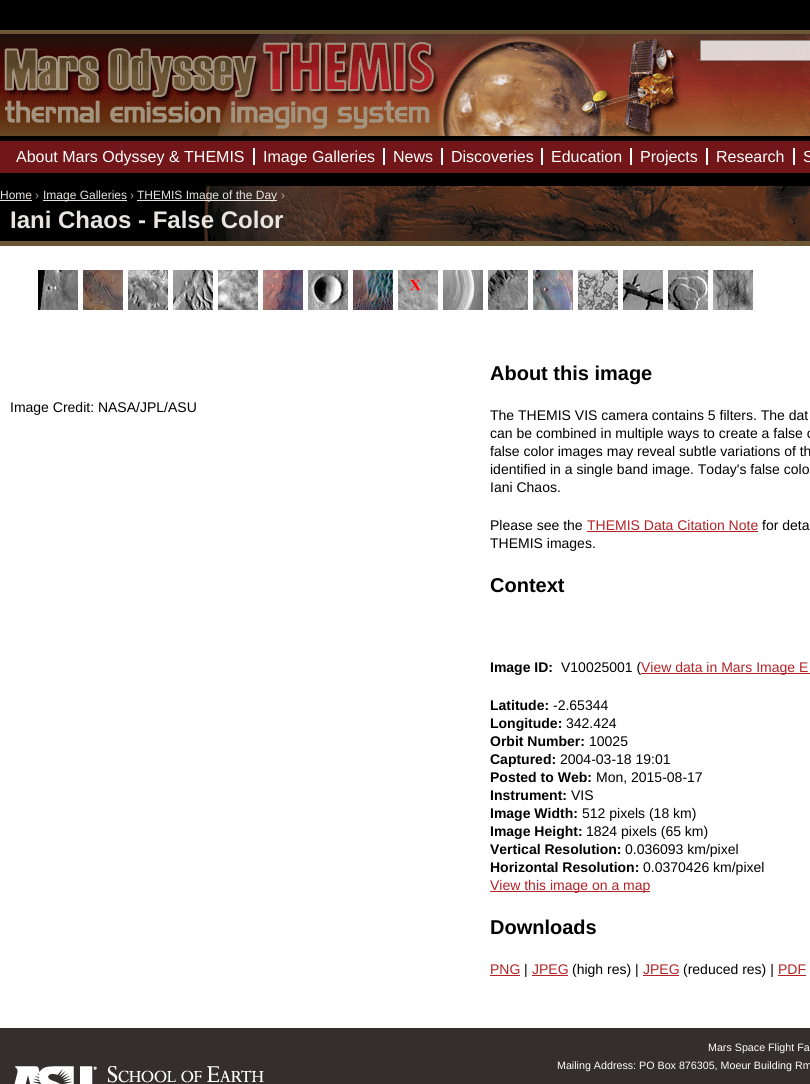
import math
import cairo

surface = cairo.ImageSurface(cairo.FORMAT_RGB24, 810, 1084)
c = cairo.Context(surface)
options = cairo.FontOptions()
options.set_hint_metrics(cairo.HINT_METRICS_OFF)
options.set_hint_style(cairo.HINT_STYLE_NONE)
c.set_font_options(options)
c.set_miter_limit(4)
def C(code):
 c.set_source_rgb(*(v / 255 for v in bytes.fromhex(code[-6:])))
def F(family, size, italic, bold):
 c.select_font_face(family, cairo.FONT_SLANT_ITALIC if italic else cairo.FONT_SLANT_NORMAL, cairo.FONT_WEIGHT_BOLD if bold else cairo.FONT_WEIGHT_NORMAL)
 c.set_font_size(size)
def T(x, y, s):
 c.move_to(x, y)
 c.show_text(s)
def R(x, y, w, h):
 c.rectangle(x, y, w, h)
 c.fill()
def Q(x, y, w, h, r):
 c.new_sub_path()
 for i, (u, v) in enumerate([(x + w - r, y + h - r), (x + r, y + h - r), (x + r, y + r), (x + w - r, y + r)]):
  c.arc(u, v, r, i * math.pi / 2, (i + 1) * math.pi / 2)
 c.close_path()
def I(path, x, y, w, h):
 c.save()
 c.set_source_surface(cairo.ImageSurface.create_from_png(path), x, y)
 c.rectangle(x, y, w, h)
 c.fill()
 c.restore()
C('000000')
c.paint()
I('1.png',0,30,810,106)
c.set_source_rgba(1,1,1,0.8)
Q(700,40,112,21,2)
c.fill()
Q(700.5,40.5,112,20,1.5)
c.set_source_rgba(0.463,0.463,0.463,0.8)
c.set_line_width(1)
c.stroke()
C('721619')
R(0,141,810,32)
F('Liberation Sans',16,0,0)
C('ffffff')
T(16,162,'About Mars Odyssey & THEMIS')
R(253,148,2,17)
T(263,162,'Image Galleries')
R(383,148,2,17)
T(393,162,'News')
R(441,148,2,17)
T(451,162,'Discoveries')
R(541,148,2,17)
T(551,162,'Education')
R(630,148,2,17)
T(640,162,'Projects')
R(706,148,2,17)
T(716,162,'Research')
R(793,148,2,17)
T(803,162,'S')
C('6c5635')
R(0,241,810,5)
I('2.png',204,186,606,55)
F('Liberation Sans',12,0,0)
C('e8e4df')
T(0,199,'Home')
R(0,200,32,1)
C('adaaaa')
T(35,199,'›')
C('e8e4df')
R(43,200,84,1)
T(43,199,'Image Galleries')
C('adaaaa')
T(130,199,'›')
C('e8e4df')
R(137,200,140,1)
T(137,199,'THEMIS Image of the Day')
C('adaaaa')
T(281,199,'›')
F('Liberation Sans',24,0,1)
C('e8e4df')
T(10,228,'Iani Chaos - False Color')
C('ffffff')
R(0,246,810,782)
I('3.png',38,270,40,40)
I('4.png',83,270,40,40)
I('5.png',128,270,40,40)
I('6.png',173,270,40,40)
I('7.png',218,270,40,40)
I('8.png',263,270,40,40)
I('9.png',308,270,40,40)
I('10.png',353,270,40,40)
I('11.png',398,270,40,40)
I('12.png',443,270,40,40)
I('13.png',488,270,40,40)
I('14.png',533,270,40,40)
I('15.png',578,270,40,40)
I('16.png',623,270,40,40)
I('17.png',668,270,40,40)
I('18.png',713,270,40,40)
F('Liberation Sans',14,0,0)
C('000000')
T(10,412,'Image Credit: NASA/JPL/ASU')
F('Liberation Sans',20,0,1)
T(490,380,'About this image')
F('Liberation Sans',14,0,0)
T(490,420,'The THEMIS VIS camera contains 5 filters. The dat')
T(490,438,'can be combined in multiple ways to create a false c')
T(490,456,'false color images may reveal subtle variations of th')
T(490,474,'identified in a single band image. Today\'s false colo')
T(490,492,'Iani Chaos.')
T(490,530,'Please see the')
C('b42228')
T(587,530,'THEMIS Data Citation Note')
R(587,531,171,1)
C('000000')
T(762,530,'for deta')
T(490,548,'THEMIS images.')
F('Liberation Sans',20,0,1)
T(490,592,'Context')
F('Liberation Sans',14,0,1)
T(490,672,'Image ID:')
F('Liberation Sans',14,0,0)
T(561,672,'V10025001 (')
C('b42228')
R(641,673,169,1)
T(641,672,'View data in Mars Image E')
F('Liberation Sans',14,0,1)
C('000000')
T(490,710,'Latitude:')
F('Liberation Sans',14,0,0)
T(553,710,'-2.65344')
F('Liberation Sans',14,0,1)
T(490,728,'Longitude:')
F('Liberation Sans',14,0,0)
T(566,728,'342.424')
F('Liberation Sans',14,0,1)
T(490,746,'Orbit Number:')
F('Liberation Sans',14,0,0)
T(589,746,'10025')
F('Liberation Sans',14,0,1)
T(490,764,'Captured:')
F('Liberation Sans',14,0,0)
T(560,764,'2004-03-18 19:01')
F('Liberation Sans',14,0,1)
T(490,782,'Posted to Web:')
F('Liberation Sans',14,0,0)
T(596,782,'Mon, 2015-08-17')
F('Liberation Sans',14,0,1)
T(490,800,'Instrument:')
F('Liberation Sans',14,0,0)
T(571,800,'VIS')
F('Liberation Sans',14,0,1)
T(490,818,'Image Width:')
F('Liberation Sans',14,0,0)
T(582,818,'512 pixels (18 km)')
F('Liberation Sans',14,0,1)
T(490,836,'Image Height:')
F('Liberation Sans',14,0,0)
T(586,836,'1824 pixels (65 km)')
F('Liberation Sans',14,0,1)
T(490,854,'Vertical Resolution:')
F('Liberation Sans',14,0,0)
T(625,854,'0.036093 km/pixel')
F('Liberation Sans',14,0,1)
T(490,872,'Horizontal Resolution:')
F('Liberation Sans',14,0,0)
T(643,872,'0.0370426 km/pixel')
C('b42228')
R(490,891,160,1)
T(490,890,'View this image on a map')
F('Liberation Sans',20,0,1)
C('000000')
T(490,934,'Downloads')
F('Liberation Sans',14,0,0)
C('b42228')
T(490,974,'PNG')
R(490,975,30,1)
C('000000')
T(524,974,'|')
C('b42228')
T(532,974,'JPEG')
R(532,975,36,1)
C('000000')
T(572,974,'(high res) |')
C('b42228')
T(643,974,'JPEG')
R(643,975,36,1)
C('000000')
T(683,974,'(reduced res) |')
C('b42228')
T(778,974,'PDF')
R(778,975,28,1)
C('352e2e')
R(0,1028,810,56)
I('19.png',14,1066,250,18)
F('Liberation Sans',10.7,0,0)
C('ffffff')
T(708,1051,'Mars Space Flight Fa')
T(557,1069,'Mailing Address: PO Box 876305, Moeur Building Rm')
surface.write_to_png('o.png')
